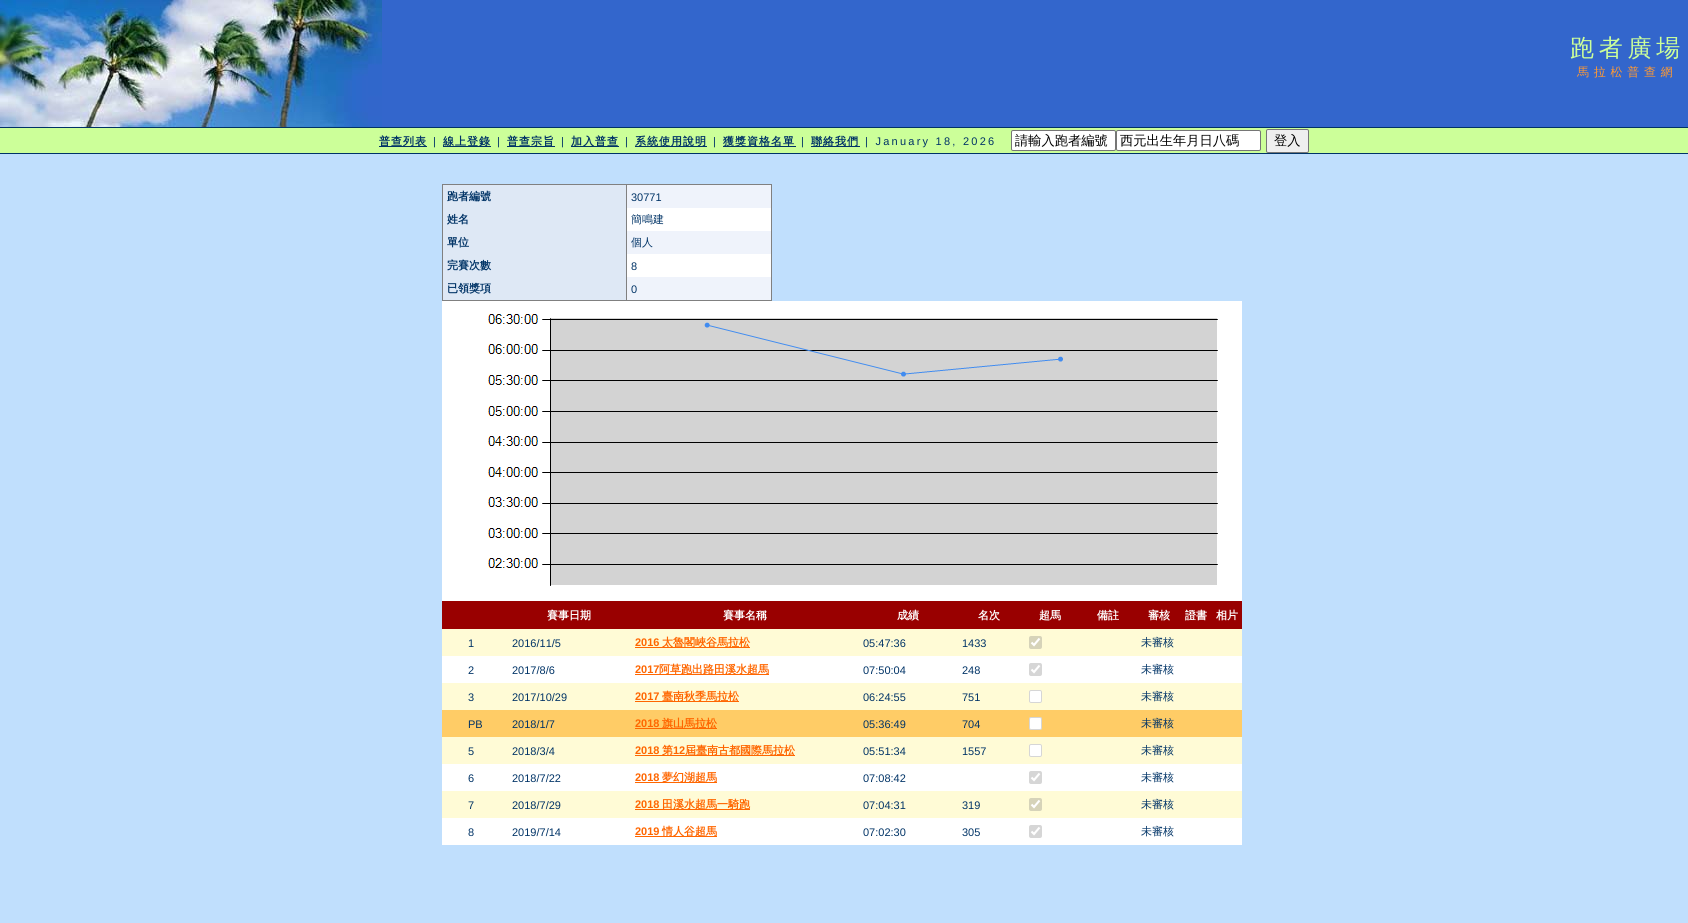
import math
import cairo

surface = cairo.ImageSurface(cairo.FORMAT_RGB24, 1688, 923)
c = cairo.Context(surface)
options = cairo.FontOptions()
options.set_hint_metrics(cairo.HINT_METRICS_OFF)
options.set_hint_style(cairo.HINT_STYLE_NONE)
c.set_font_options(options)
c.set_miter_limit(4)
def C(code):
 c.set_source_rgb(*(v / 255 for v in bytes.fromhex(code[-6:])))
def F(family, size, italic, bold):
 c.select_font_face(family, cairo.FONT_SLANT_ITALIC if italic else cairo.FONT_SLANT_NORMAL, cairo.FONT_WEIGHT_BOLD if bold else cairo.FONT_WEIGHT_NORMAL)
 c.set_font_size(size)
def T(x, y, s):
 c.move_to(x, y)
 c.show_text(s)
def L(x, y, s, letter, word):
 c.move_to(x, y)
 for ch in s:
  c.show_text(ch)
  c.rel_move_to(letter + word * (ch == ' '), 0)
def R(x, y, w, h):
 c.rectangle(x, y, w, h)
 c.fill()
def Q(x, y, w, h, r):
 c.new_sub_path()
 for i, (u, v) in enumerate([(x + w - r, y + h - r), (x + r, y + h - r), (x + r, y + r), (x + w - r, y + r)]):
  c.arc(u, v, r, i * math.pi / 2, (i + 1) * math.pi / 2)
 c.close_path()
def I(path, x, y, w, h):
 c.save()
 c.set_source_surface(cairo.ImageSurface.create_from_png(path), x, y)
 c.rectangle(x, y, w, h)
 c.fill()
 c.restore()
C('c0dffd')
c.paint()
C('3366cc')
R(382,0,1306,127)
I('1.png',0,0,382,127)
F('WenQuanYi Zen Hei Medium',24,0,0)
C('ccff99')
L(1570,56,'跑者廣場',4.75,0)
F('WenQuanYi Zen Hei Medium',12,0,0)
C('ff9933')
L(1577,76,'馬拉松普查網',4.75,0)
C('003366')
R(0,127,1688,1)
C('ccff99')
R(0,128,1688,25)
C('003366')
R(379,146,48,1)
F('WenQuanYi Zen Hei',11,0,1)
L(379,145,'普查列表',1,0)
F('Liberation Sans',11,0,0)
L(433,145,'|',2.25,0)
R(443,146,48,1)
F('WenQuanYi Zen Hei',11,0,1)
L(443,145,'線上登錄',1,0)
F('Liberation Sans',11,0,0)
L(497,145,'|',2.25,0)
R(507,146,48,1)
F('WenQuanYi Zen Hei',11,0,1)
L(507,145,'普查宗旨',1,0)
F('Liberation Sans',11,0,0)
L(561,145,'|',2.25,0)
R(571,146,48,1)
F('WenQuanYi Zen Hei',11,0,1)
L(571,145,'加入普查',1,0)
F('Liberation Sans',11,0,0)
L(625,145,'|',2.25,0)
R(635,146,72,1)
F('WenQuanYi Zen Hei',11,0,1)
L(635,145,'系統使用說明',1,0)
F('Liberation Sans',11,0,0)
L(713,145,'|',2.25,0)
R(723,146,73,1)
F('WenQuanYi Zen Hei',11,0,1)
L(723,145,'獲獎資格名單',1,0)
F('Liberation Sans',11,0,0)
L(801,145,'|',2.25,0)
R(811,146,49,1)
F('WenQuanYi Zen Hei',11,0,1)
L(811,145,'聯絡我們',1,0)
F('Liberation Sans',11,0,0)
L(865,145,'| January 18, 2026',2.25,0)
C('ffffff')
Q(1011.5,130.5,104,20,1.5)
c.fill_preserve()
C('767676')
c.set_line_width(1)
c.stroke()
F('WenQuanYi Zen Hei Medium',13.25,0,0)
C('000000')
T(1015,145,'請輸入跑者編號')
C('ffffff')
Q(1116.5,130.5,144,20,1.5)
c.fill_preserve()
C('767676')
c.stroke()
C('000000')
T(1120,145,'西元出生年月日八碼')
C('efefef')
Q(1266.5,129.5,42,23,1.5)
c.fill_preserve()
C('767676')
c.stroke()
C('000000')
T(1274,145,'登入')
C('003366')
R(0,153,1688,1)
C('808080')
R(442,184,330,1)
R(771,184,1,117)
R(442,300,330,1)
R(442,184,1,117)
C('eff3fb')
R(627,185,144,23)
C('dee8f5')
R(443,185,183,115)
F('WenQuanYi Zen Hei',11,0,1)
C('003366')
T(447,200,'跑者編號')
F('Liberation Sans',11,0,0)
T(631,201,'30771')
C('ffffff')
R(627,208,144,23)
F('WenQuanYi Zen Hei',11,0,1)
C('003366')
T(447,223,'姓名')
F('WenQuanYi Zen Hei Medium',11,0,0)
T(631,223,'簡鳴建')
C('eff3fb')
R(627,231,144,23)
F('WenQuanYi Zen Hei',11,0,1)
C('003366')
T(447,246,'單位')
F('WenQuanYi Zen Hei Medium',11,0,0)
T(631,246,'個人')
C('ffffff')
R(627,254,144,23)
F('WenQuanYi Zen Hei',11,0,1)
C('003366')
T(447,269,'完賽次數')
F('Liberation Sans',11,0,0)
T(631,270,'8')
C('eff3fb')
R(627,277,144,23)
F('WenQuanYi Zen Hei',11,0,1)
C('003366')
T(447,292,'已領獎項')
C('808080')
R(626,184,1,117)
F('Liberation Sans',11,0,0)
C('003366')
T(631,293,'0')
I('2.png',442,301,800,300)
C('990000')
R(442,601,800,28)
F('WenQuanYi Zen Hei',11,0,1)
C('ffffff')
T(547,619,'賽事日期')
T(723,619,'賽事名稱')
T(897,619,'成績')
T(978,619,'名次')
T(1039,619,'超馬')
T(1097,619,'備註')
T(1148,619,'審核')
T(1185,619,'證書')
T(1216,619,'相片')
C('fffbd6')
R(442,629,800,27)
F('Liberation Sans',11,0,0)
C('003366')
T(468,647,'1')
T(512,647,'2016/11/5')
F('Liberation Sans',11,0,1)
C('ff6600')
T(635,646,'2016')
R(635,647,115,1)
F('WenQuanYi Zen Hei',11,0,1)
T(662,646,'太魯閣峽谷馬拉松')
F('Liberation Sans',11,0,0)
C('003366')
T(863,647,'05:47:36')
T(962,647,'1433')
C('d6d3b9')
Q(1029,636,13,13,2)
c.fill()
c.new_path()
c.move_to(1031.5,642.5)
c.line_to(1034,645)
c.line_to(1039.5,638.5)
C('ffffff')
c.set_line_width(2.1)
c.stroke()
F('WenQuanYi Zen Hei Medium',11,0,0)
C('003366')
T(1141,646,'未審核')
C('ffffff')
R(442,656,800,27)
F('Liberation Sans',11,0,0)
C('003366')
T(468,674,'2')
T(512,674,'2017/8/6')
F('Liberation Sans',11,0,1)
C('ff6600')
T(635,673,'2017')
R(635,674,134,1)
F('WenQuanYi Zen Hei',11,0,1)
T(659,673,'阿草跑出路田溪水超馬')
F('Liberation Sans',11,0,0)
C('003366')
T(863,674,'07:50:04')
T(962,674,'248')
C('d6d6d6')
Q(1029,663,13,13,2)
c.fill()
c.new_path()
c.move_to(1031.5,669.5)
c.line_to(1034,672)
c.line_to(1039.5,665.5)
C('ffffff')
c.stroke()
F('WenQuanYi Zen Hei Medium',11,0,0)
C('003366')
T(1141,673,'未審核')
C('fffbd6')
R(442,683,800,27)
F('Liberation Sans',11,0,0)
C('003366')
T(468,701,'3')
T(512,701,'2017/10/29')
F('Liberation Sans',11,0,1)
C('ff6600')
T(635,700,'2017')
R(635,701,104,1)
F('WenQuanYi Zen Hei',11,0,1)
T(662,700,'臺南秋季馬拉松')
F('Liberation Sans',11,0,0)
C('003366')
T(863,701,'06:24:55')
T(962,701,'751')
C('ffffff')
Q(1029,690,13,13,2)
c.fill()
Q(1029.5,690.5,12,12,1.5)
c.set_source_rgba(0.463,0.463,0.463,0.3)
c.set_line_width(1)
c.stroke()
F('WenQuanYi Zen Hei Medium',11,0,0)
C('003366')
T(1141,700,'未審核')
C('ffcc66')
R(442,710,800,27)
F('Liberation Sans',11,0,0)
C('003366')
T(468,728,'PB')
T(512,728,'2018/1/7')
F('Liberation Sans',11,0,1)
C('ff6600')
T(635,727,'2018')
R(635,728,82,1)
F('WenQuanYi Zen Hei',11,0,1)
T(662,727,'旗山馬拉松')
F('Liberation Sans',11,0,0)
C('003366')
T(863,728,'05:36:49')
T(962,728,'704')
C('ffffff')
Q(1029,717,13,13,2)
c.fill()
Q(1029.5,717.5,12,12,1.5)
c.set_source_rgba(0.463,0.463,0.463,0.3)
c.stroke()
F('WenQuanYi Zen Hei Medium',11,0,0)
C('003366')
T(1141,727,'未審核')
C('fffbd6')
R(442,737,800,27)
F('Liberation Sans',11,0,0)
C('003366')
T(468,755,'5')
T(512,755,'2018/3/4')
F('Liberation Sans',11,0,1)
C('ff6600')
T(635,754,'2018')
R(635,755,160,1)
F('WenQuanYi Zen Hei',11,0,1)
T(662,754,'第')
F('Liberation Sans',11,0,1)
T(673,754,'12')
F('WenQuanYi Zen Hei',11,0,1)
T(685,754,'屆臺南古都國際馬拉松')
F('Liberation Sans',11,0,0)
C('003366')
T(863,755,'05:51:34')
T(962,755,'1557')
C('ffffff')
Q(1029,744,13,13,2)
c.fill()
Q(1029.5,744.5,12,12,1.5)
c.set_source_rgba(0.463,0.463,0.463,0.3)
c.stroke()
F('WenQuanYi Zen Hei Medium',11,0,0)
C('003366')
T(1141,754,'未審核')
C('ffffff')
R(442,764,800,27)
F('Liberation Sans',11,0,0)
C('003366')
T(468,782,'6')
T(512,782,'2018/7/22')
F('Liberation Sans',11,0,1)
C('ff6600')
T(635,781,'2018')
R(635,782,82,1)
F('WenQuanYi Zen Hei',11,0,1)
T(662,781,'夢幻湖超馬')
F('Liberation Sans',11,0,0)
C('003366')
T(863,782,'07:08:42')
C('d6d6d6')
Q(1029,771,13,13,2)
c.fill()
c.new_path()
c.move_to(1031.5,777.5)
c.line_to(1034,780)
c.line_to(1039.5,773.5)
C('ffffff')
c.set_line_width(2.1)
c.stroke()
F('WenQuanYi Zen Hei Medium',11,0,0)
C('003366')
T(1141,781,'未審核')
C('fffbd6')
R(442,791,800,27)
F('Liberation Sans',11,0,0)
C('003366')
T(468,809,'7')
T(512,809,'2018/7/29')
F('Liberation Sans',11,0,1)
C('ff6600')
T(635,808,'2018')
R(635,809,115,1)
F('WenQuanYi Zen Hei',11,0,1)
T(662,808,'田溪水超馬一騎跑')
F('Liberation Sans',11,0,0)
C('003366')
T(863,809,'07:04:31')
T(962,809,'319')
C('d6d3b9')
Q(1029,798,13,13,2)
c.fill()
c.new_path()
c.move_to(1031.5,804.5)
c.line_to(1034,807)
c.line_to(1039.5,800.5)
C('ffffff')
c.stroke()
F('WenQuanYi Zen Hei Medium',11,0,0)
C('003366')
T(1141,808,'未審核')
C('ffffff')
R(442,818,800,27)
F('Liberation Sans',11,0,0)
C('003366')
T(468,836,'8')
T(512,836,'2019/7/14')
F('Liberation Sans',11,0,1)
C('ff6600')
T(635,835,'2019')
R(635,836,82,1)
F('WenQuanYi Zen Hei',11,0,1)
T(662,835,'情人谷超馬')
F('Liberation Sans',11,0,0)
C('003366')
T(863,836,'07:02:30')
T(962,836,'305')
C('d6d6d6')
Q(1029,825,13,13,2)
c.fill()
c.new_path()
c.move_to(1031.5,831.5)
c.line_to(1034,834)
c.line_to(1039.5,827.5)
C('ffffff')
c.stroke()
F('WenQuanYi Zen Hei Medium',11,0,0)
C('003366')
T(1141,835,'未審核')
surface.write_to_png('o.png')
